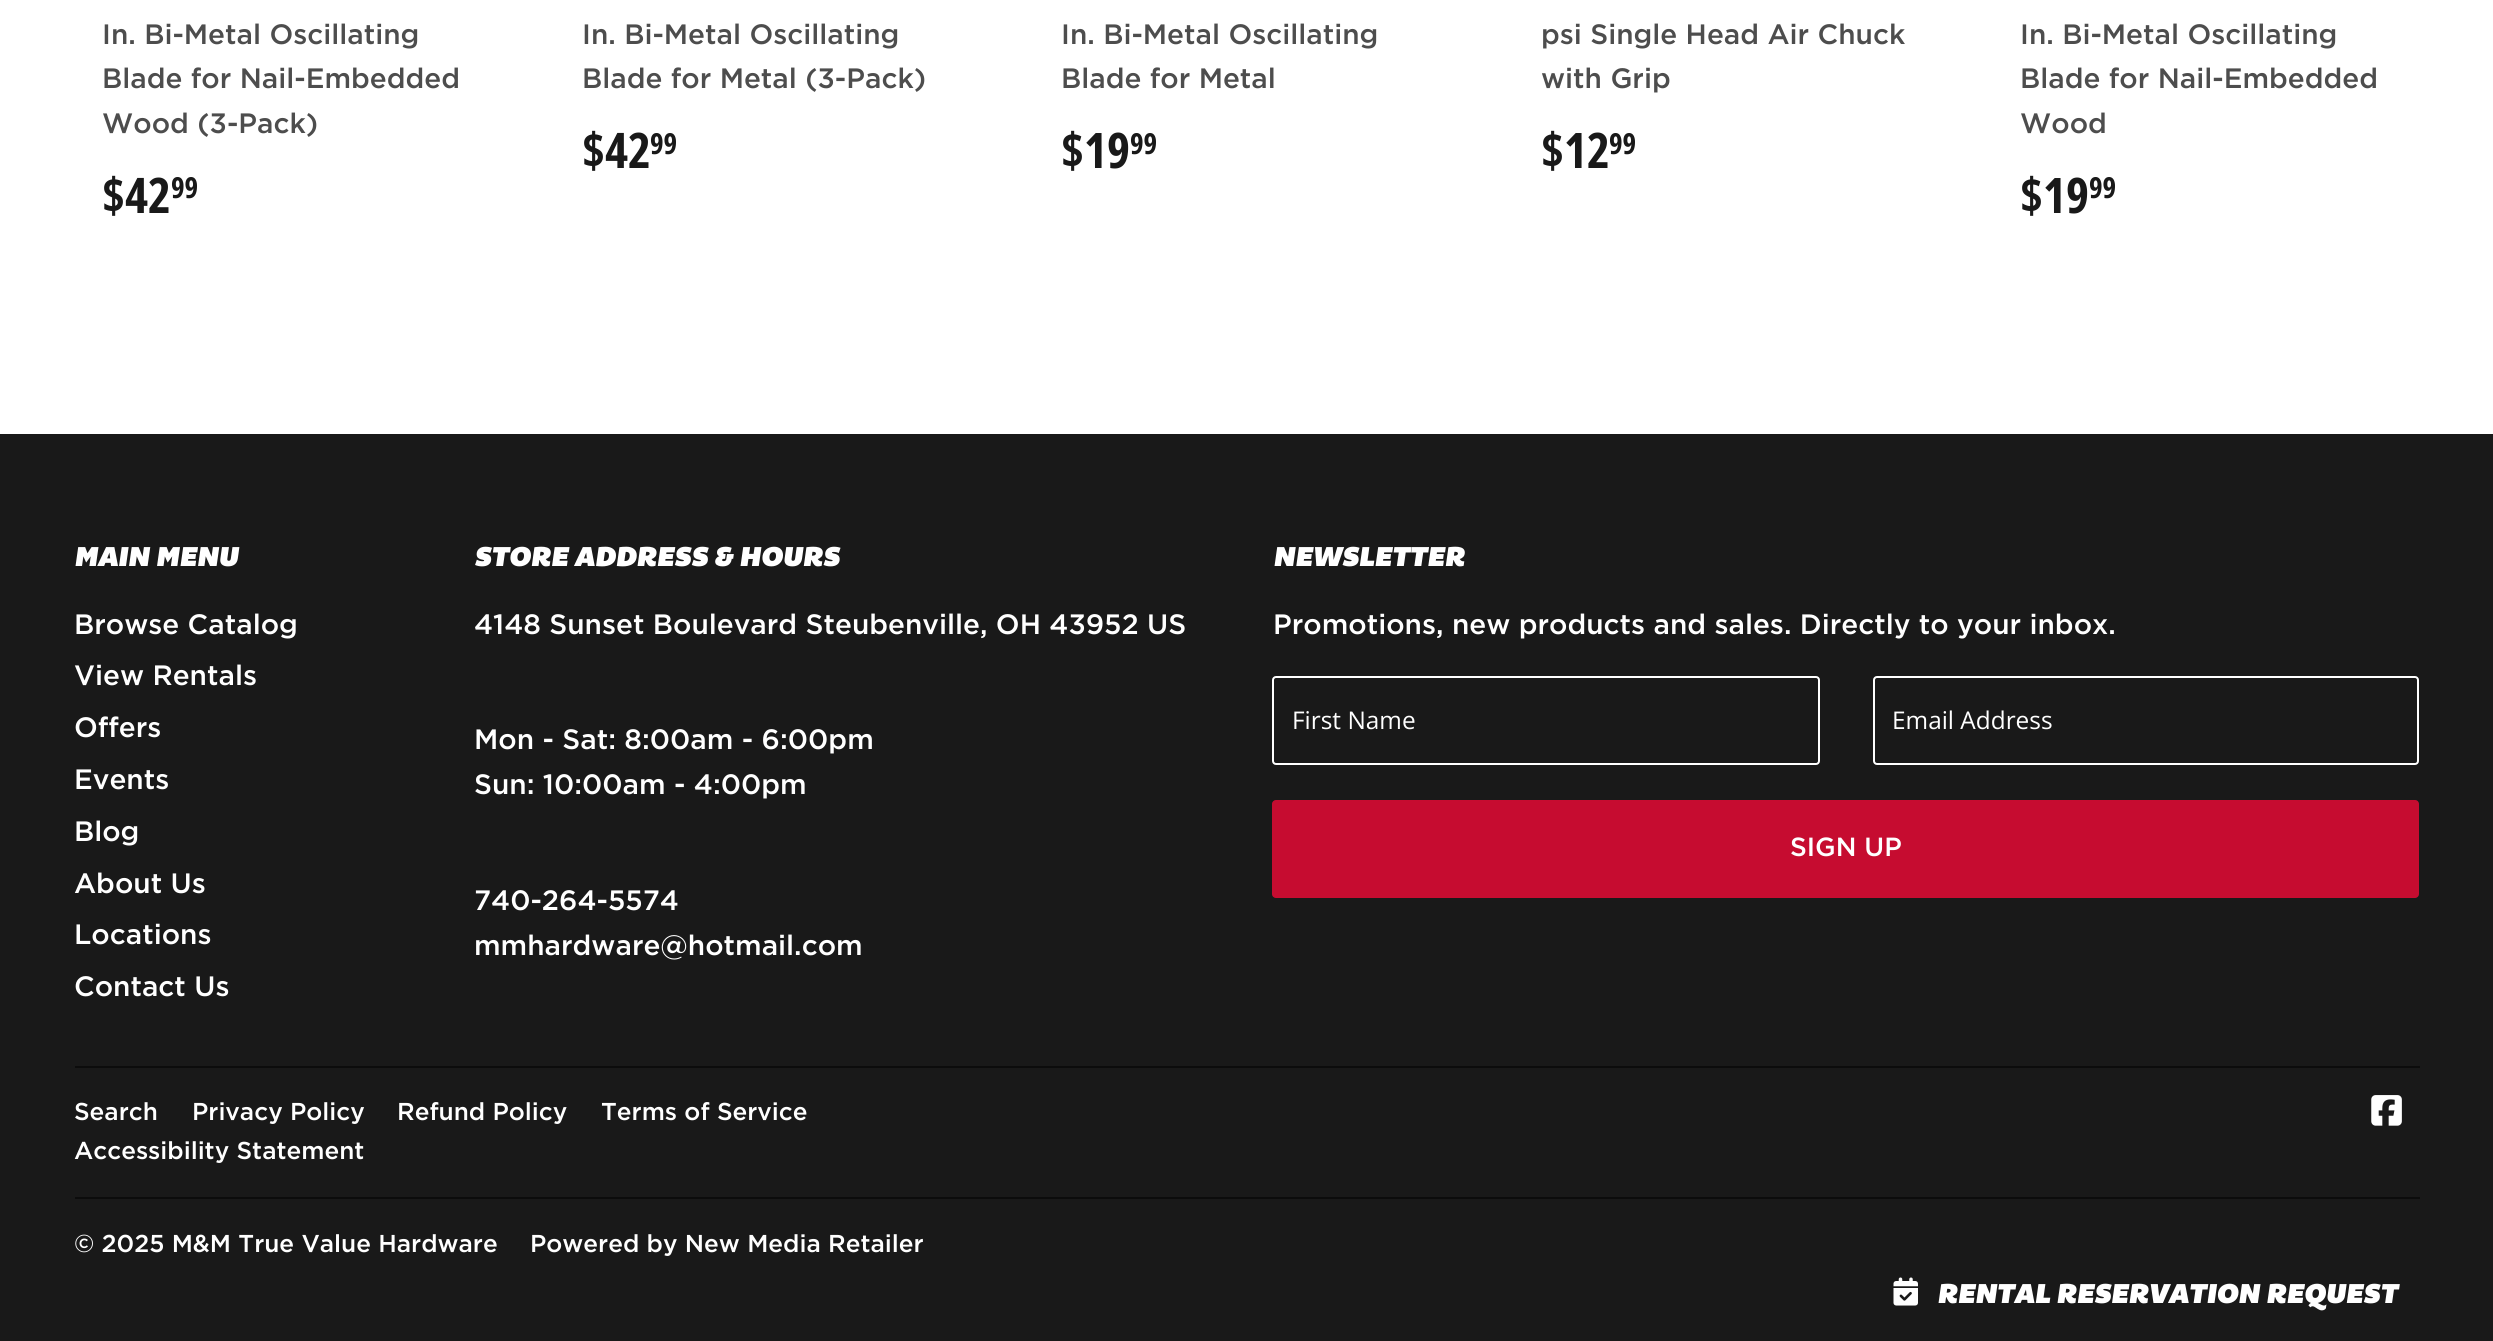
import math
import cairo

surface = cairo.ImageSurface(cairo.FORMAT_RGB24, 2493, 1341)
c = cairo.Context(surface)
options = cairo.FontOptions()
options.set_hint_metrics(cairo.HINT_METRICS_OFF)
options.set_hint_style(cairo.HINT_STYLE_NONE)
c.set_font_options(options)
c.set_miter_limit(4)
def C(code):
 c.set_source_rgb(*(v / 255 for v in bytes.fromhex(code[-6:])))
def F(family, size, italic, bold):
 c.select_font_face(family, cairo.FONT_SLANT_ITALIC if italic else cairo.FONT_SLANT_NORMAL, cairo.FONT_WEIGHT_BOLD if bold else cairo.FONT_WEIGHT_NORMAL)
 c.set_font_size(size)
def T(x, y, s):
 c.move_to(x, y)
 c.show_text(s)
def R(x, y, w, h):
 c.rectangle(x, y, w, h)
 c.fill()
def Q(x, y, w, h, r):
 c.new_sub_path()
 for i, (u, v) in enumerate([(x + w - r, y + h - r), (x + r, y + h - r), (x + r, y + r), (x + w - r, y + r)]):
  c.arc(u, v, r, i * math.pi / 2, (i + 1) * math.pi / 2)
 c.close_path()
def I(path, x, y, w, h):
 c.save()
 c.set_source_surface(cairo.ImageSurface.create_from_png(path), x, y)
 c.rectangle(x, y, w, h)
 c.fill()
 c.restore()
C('ffffff')
c.paint()
F('Gotham Medium',28,0,0)
C('4d4d4d')
T(102,44,'In. Bi-Metal Oscillating')
T(102,88,'Blade for Nail-Embedded')
T(102,133,'Wood (3-Pack)')
F('Open Sans Condensed',49,0,1)
C('191919')
T(102,213,'$42')
F('Open Sans Condensed',29,0,1)
T(171,198,'99')
F('Gotham Medium',28,0,0)
C('4d4d4d')
T(582,44,'In. Bi-Metal Oscillating')
T(582,88,'Blade for Metal (3-Pack)')
F('Open Sans Condensed',49,0,1)
C('191919')
T(582,168,'$42')
F('Open Sans Condensed',29,0,1)
T(650,154,'99')
F('Gotham Medium',28,0,0)
C('4d4d4d')
T(1061,44,'In. Bi-Metal Oscillating')
T(1061,88,'Blade for Metal')
F('Open Sans Condensed',49,0,1)
C('191919')
T(1061,168,'$19')
F('Open Sans Condensed',29,0,1)
T(1130,154,'99')
F('Gotham Medium',28,0,0)
C('4d4d4d')
T(1541,44,'psi Single Head Air Chuck')
T(1541,88,'with Grip')
F('Open Sans Condensed',49,0,1)
C('191919')
T(1541,168,'$12')
F('Open Sans Condensed',29,0,1)
T(1609,154,'99')
F('Gotham Medium',28,0,0)
C('4d4d4d')
T(2020,44,'In. Bi-Metal Oscillating')
T(2020,88,'Blade for Nail-Embedded')
T(2020,133,'Wood')
F('Open Sans Condensed',49,0,1)
C('191919')
T(2020,213,'$19')
F('Open Sans Condensed',29,0,1)
T(2089,198,'99')
R(0,434,2493,907)
F('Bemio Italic',28,1,0)
C('ffffff')
T(74,566,'MAIN MENU')
F('Gotham Medium',28,0,0)
T(74,634,'Browse Catalog')
T(74,685,'View Rentals')
T(74,737,'Offers')
T(74,789,'Events')
T(74,841,'Blog')
T(74,893,'About Us')
T(74,944,'Locations')
T(74,996,'Contact Us')
F('Bemio Italic',28,1,0)
T(474,566,'STORE ADDRESS & HOURS')
F('Gotham Medium',28,0,0)
T(474,634,'4148 Sunset Boulevard Steubenville, OH 43952 US')
T(474,749,'Mon - Sat: 8:00am - 6:00pm')
T(474,794,'Sun: 10:00am - 4:00pm')
T(474,910,'740-264-5574')
T(474,955,'mmhardware@hotmail.com')
F('Bemio Italic',28,1,0)
T(1273,566,'NEWSLETTER')
F('Gotham Medium',28,0,0)
T(1273,634,'Promotions, new products and sales. Directly to your inbox.')
Q(1273,677,546,87,3)
c.stroke()
F('Open Sans',24.4,0,0)
T(1292,729,'First Name')
Q(1874,677,544,87,3)
c.stroke()
T(1892,729,'Email Address')
C('c60c30')
Q(1272,800,1147,98,4)
c.fill()
F('Gotham Medium',26.25,0,0)
C('ffffff')
T(1790,856,'SIGN UP')
C('0c0c0c')
R(75,1066,2345,2)
F('Gotham Medium',24.4,0,0)
C('ffffff')
T(74,1120,'Search')
T(192,1120,'Privacy Policy')
T(397,1120,'Refund Policy')
T(601,1120,'Terms of Service')
T(74,1159,'Accessibility Statement')
I('1.png',2371,1095,31,31)
C('0c0c0c')
R(75,1197,2345,2)
C('ffffff')
T(74,1252,'© 2025 M&M True Value Hardware')
T(530,1252,'Powered by New Media Retailer')
I('2.png',1893,1277,25,29)
F('Bemio Italic',28,1,0)
T(1937,1303,'RENTAL RESERVATION REQUEST')
surface.write_to_png('o.png')
